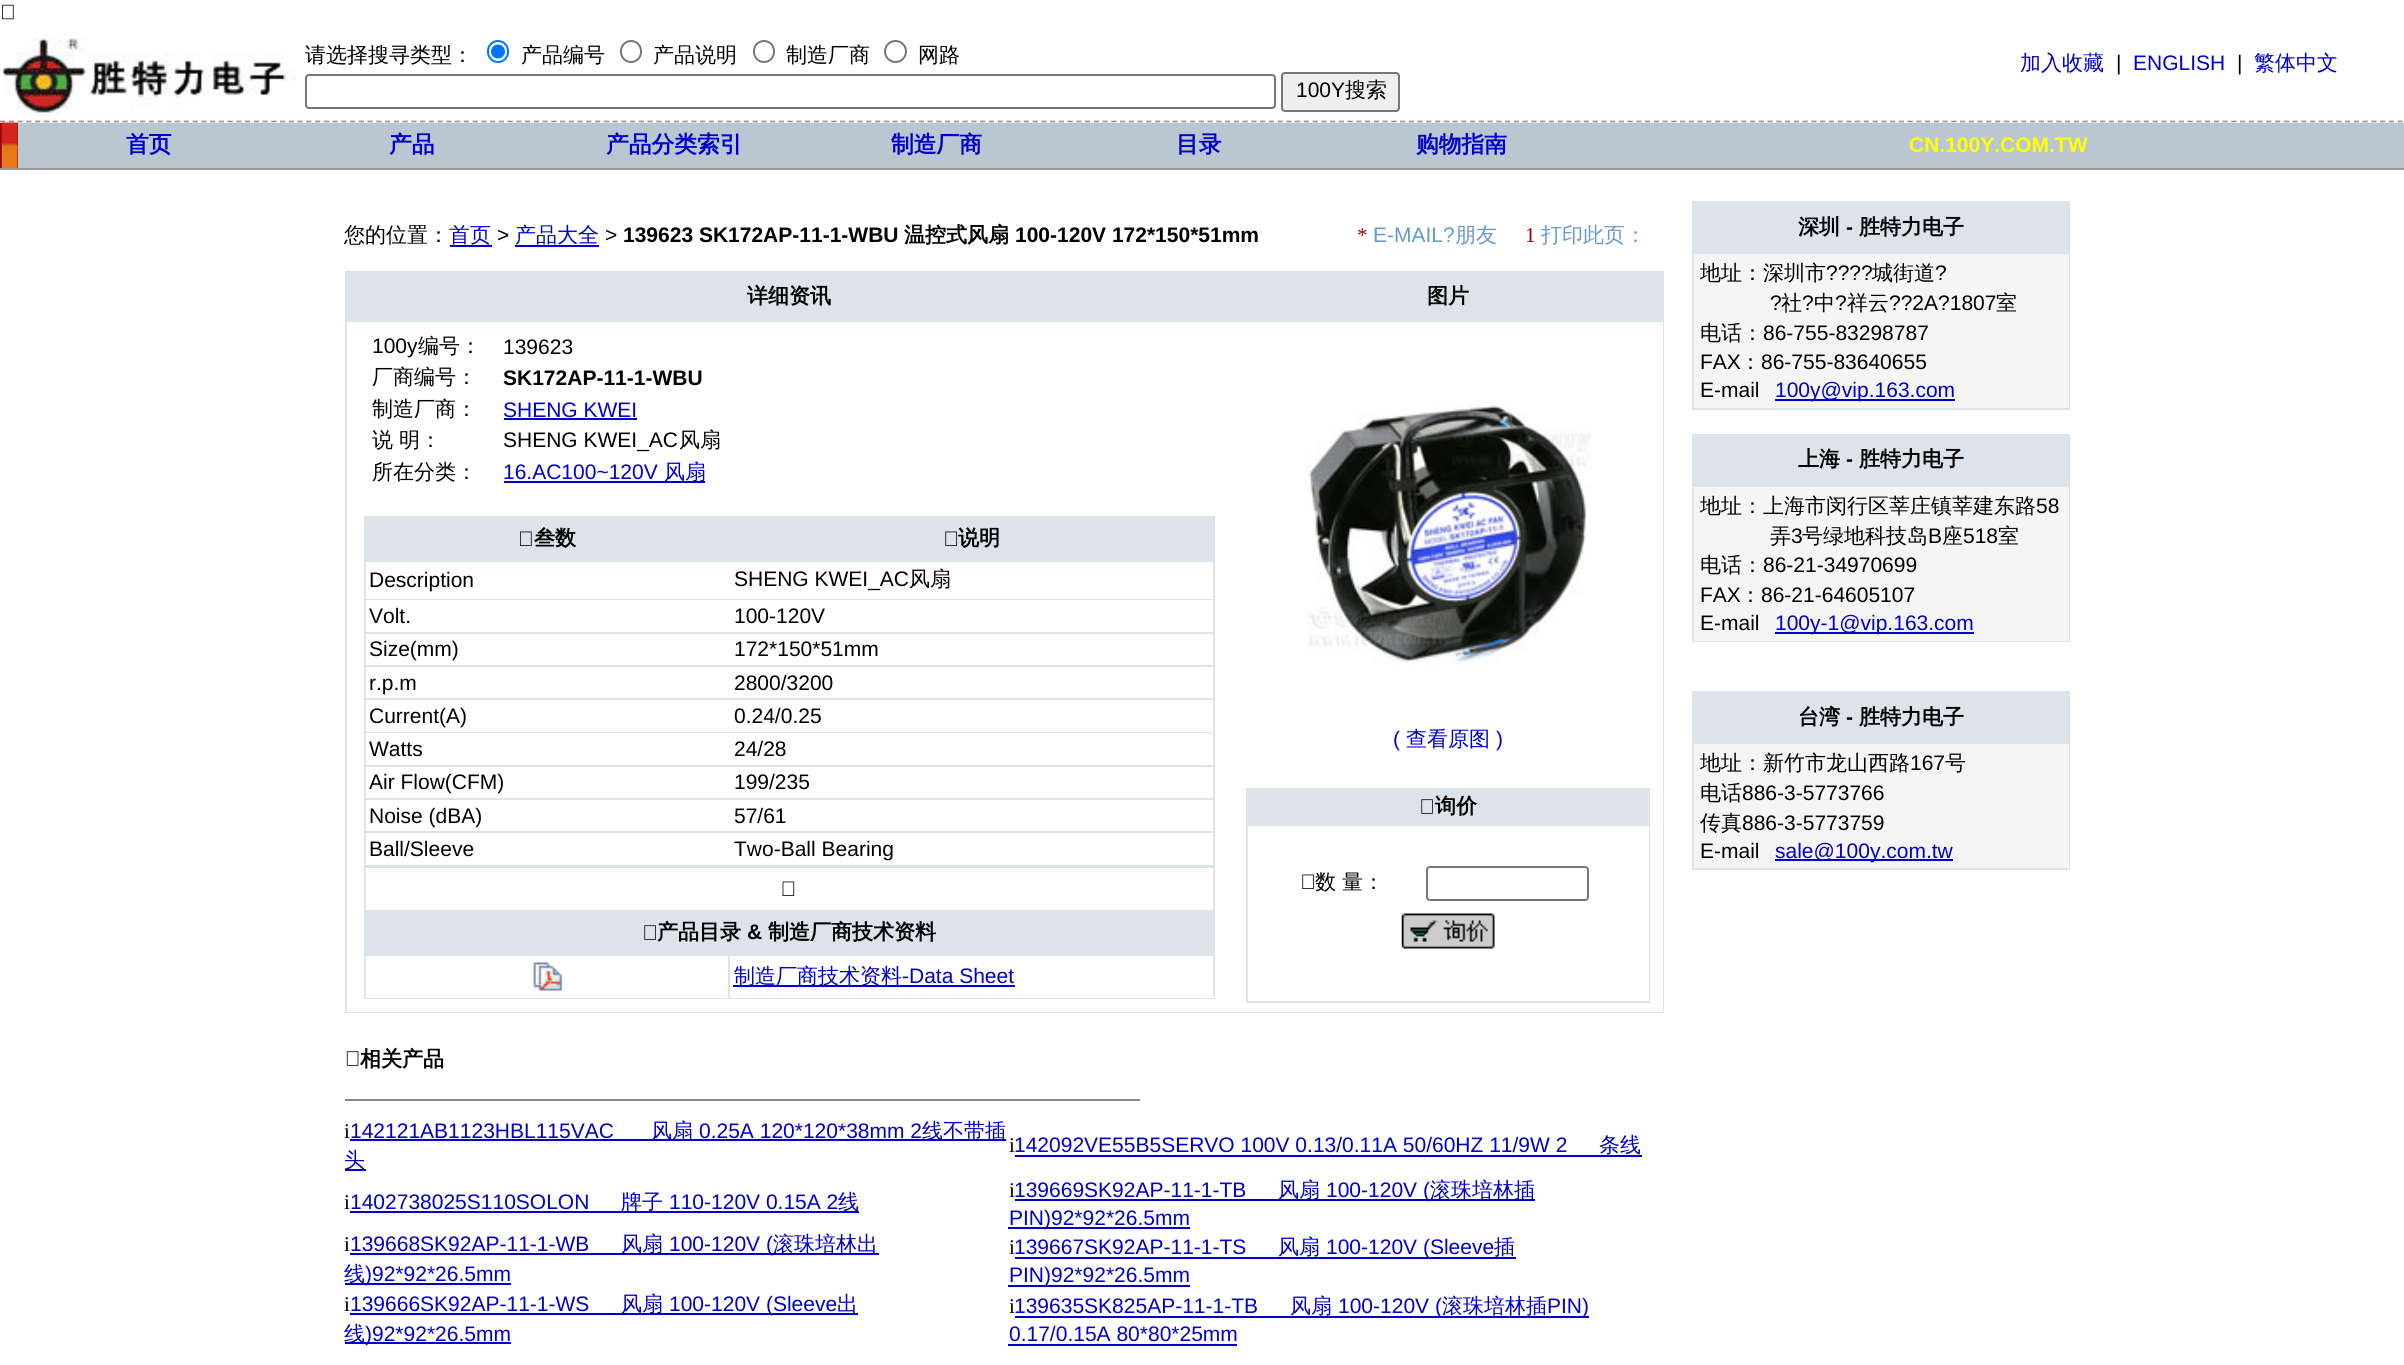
import math
import cairo

surface = cairo.ImageSurface(cairo.FORMAT_RGB24, 2404, 1365)
c = cairo.Context(surface)
options = cairo.FontOptions()
options.set_hint_metrics(cairo.HINT_METRICS_OFF)
options.set_hint_style(cairo.HINT_STYLE_NONE)
c.set_font_options(options)
c.set_miter_limit(4)
def C(code):
 c.set_source_rgb(*(v / 255 for v in bytes.fromhex(code[-6:])))
def F(family, size, italic, bold):
 c.select_font_face(family, cairo.FONT_SLANT_ITALIC if italic else cairo.FONT_SLANT_NORMAL, cairo.FONT_WEIGHT_BOLD if bold else cairo.FONT_WEIGHT_NORMAL)
 c.set_font_size(size)
def T(x, y, s):
 c.move_to(x, y)
 c.show_text(s)
def R(x, y, w, h):
 c.rectangle(x, y, w, h)
 c.fill()
def Q(x, y, w, h, r):
 c.new_sub_path()
 for i, (u, v) in enumerate([(x + w - r, y + h - r), (x + r, y + h - r), (x + r, y + r), (x + w - r, y + r)]):
  c.arc(u, v, r, i * math.pi / 2, (i + 1) * math.pi / 2)
 c.close_path()
def I(path, x, y, w, h):
 c.save()
 c.set_source_surface(cairo.ImageSurface.create_from_png(path), x, y)
 c.rectangle(x, y, w, h)
 c.fill()
 c.restore()
C('ffffff')
c.paint()
I('1.png',2,4,12,16)
I('2.png',3,38,293,79)
F('WenQuanYi Zen Hei Medium',21,0,0)
C('000000')
T(305,62,'请选择搜寻类型：')
Q(488,41,20,21,10)
C('0075ff')
c.stroke()
c.arc(498,51.5,7,0,2 * math.pi)
c.fill()
C('000000')
T(521,62,'产品编号')
Q(621,41,20,21,10)
C('767676')
c.stroke()
C('000000')
T(653,62,'产品说明')
Q(754,41,20,21,10)
C('767676')
c.stroke()
C('000000')
T(786,62,'制造厂商')
c.new_path()
c.arc(895.5,51.5,10.5,0,2 * math.pi)
C('767676')
c.stroke()
C('000000')
T(918,62,'网路')
Q(306,75,969,33,3)
C('767676')
c.stroke()
C('efefef')
Q(1282,73,117,38,3)
c.fill_preserve()
C('767676')
c.stroke()
F('Liberation Sans',21,0,0)
C('000000')
T(1296,97,'100Y')
F('WenQuanYi Zen Hei Medium',21,0,0)
T(1345,97,'搜索')
C('0000cc')
T(2020,70,'加入收藏')
F('Liberation Sans',21,0,0)
C('000000')
T(2116,70,'|')
C('0000cc')
T(2133,70,'ENGLISH')
C('000000')
T(2237,70,'|')
F('WenQuanYi Zen Hei Medium',21,0,0)
C('0000cc')
T(2254,70,'繁体中文')
c.new_path()
c.move_to(0,121.5)
c.line_to(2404.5,121.5)
C('999999')
c.set_line_width(1.8)
c.set_dash([5.25,3.5])
c.stroke()
R(0,168,2404,2)
C('990000')
R(0,123,18,45)
I('3.png',1,122,17,46)
C('bac7d1')
R(18,123,2386,45)
F('WenQuanYi Zen Hei',22.75,0,1)
C('0000cc')
T(126,152,'首页')
T(389,152,'产品')
T(606,152,'产品分类索引')
T(891,152,'制造厂商')
T(1176,152,'目录')
T(1416,152,'购物指南')
F('Liberation Sans',21,0,1)
C('ffff00')
T(1909,152,'CN.100Y.COM.TW')
F('WenQuanYi Zen Hei Medium',21,0,0)
C('000000')
T(344,242,'您的位置：')
C('0000cc')
R(450,245,42,2)
T(449,242,'首页')
F('Liberation Sans',21,0,0)
C('000000')
T(497,242,'>')
F('WenQuanYi Zen Hei Medium',21,0,0)
C('0000cc')
T(515,242,'产品大全')
R(515,245,84,2)
F('Liberation Sans',21,0,0)
C('000000')
T(605,242,'>')
F('Liberation Sans',21,0,1)
T(623,242,'139623 SK172AP-11-1-WBU')
F('WenQuanYi Zen Hei',21,0,1)
T(904,242,'温控式风扇')
F('Liberation Sans',21,0,1)
T(1015,242,'100-120V 172*150*51mm')
F('Liberation Serif',21,0,0)
C('990000')
T(1357,242,'*')
F('Liberation Sans',21,0,0)
C('6699cc')
T(1373,242,'E-MAIL?')
F('WenQuanYi Zen Hei Medium',21,0,0)
T(1455,242,'朋友')
F('Liberation Serif',21,0,0)
C('990000')
T(1525,242,'1')
F('WenQuanYi Zen Hei Medium',21,0,0)
C('6699cc')
T(1541,242,'打印此页：')
C('dde3eb')
R(345,271,1319,742)
F('WenQuanYi Zen Hei',21,0,1)
C('000000')
T(747,303,'详细资讯')
T(1427,303,'图片')
C('ffffff')
R(347,322,1316,690)
F('Liberation Sans',21,0,0)
C('000000')
T(372,353,'100y')
F('WenQuanYi Zen Hei Medium',21,0,0)
T(418,353,'编号：')
F('Liberation Sans',21,0,0)
T(503,354,'139623')
F('WenQuanYi Zen Hei Medium',21,0,0)
T(372,384,'厂商编号：')
F('Liberation Sans',21,0,1)
T(503,385,'SK172AP-11-1-WBU')
F('WenQuanYi Zen Hei Medium',21,0,0)
T(372,416,'制造厂商：')
F('Liberation Sans',21,0,0)
C('0000cc')
T(503,417,'SHENG KWEI')
R(504,418,133,2)
F('WenQuanYi Zen Hei Medium',21,0,0)
C('000000')
T(372,447,'说')
T(399,447,'明：')
F('Liberation Sans',21,0,0)
T(503,447,'SHENG KWEI_AC')
F('WenQuanYi Zen Hei Medium',21,0,0)
T(679,447,'风扇')
T(372,479,'所在分类：')
F('Liberation Sans',21,0,0)
C('0000cc')
T(503,479,'16.AC100~120V')
R(504,481,201,2)
F('WenQuanYi Zen Hei Medium',21,0,0)
T(664,479,'风扇')
C('dde3eb')
R(364,516,851,483)
I('4.png',520,531,12,15)
F('WenQuanYi Zen Hei',21,0,1)
C('000000')
T(534,545,'叁数')
I('5.png',945,531,12,15)
T(958,545,'说明')
C('ffffff')
R(366,562,847,37)
F('Liberation Sans',21,0,0)
C('000000')
T(369,587,'Description')
T(734,586,'SHENG KWEI_AC')
F('WenQuanYi Zen Hei Medium',21,0,0)
T(909,586,'风扇')
C('ffffff')
R(366,600,847,32)
F('Liberation Sans',21,0,0)
C('000000')
T(369,623,'Volt.')
T(734,623,'100-120V')
C('ffffff')
R(366,634,847,31)
C('000000')
T(369,656,'Size(mm)')
T(734,656,'172*150*51mm')
C('ffffff')
R(366,667,847,31)
C('000000')
T(369,690,'r.p.m')
T(734,690,'2800/3200')
C('ffffff')
R(366,700,847,32)
C('000000')
T(369,723,'Current(A)')
T(734,723,'0.24/0.25')
C('ffffff')
R(366,733,847,32)
C('000000')
T(369,756,'Watts')
T(734,756,'24/28')
C('ffffff')
R(366,767,847,31)
C('000000')
T(369,789,'Air Flow(CFM)')
T(734,789,'199/235')
C('ffffff')
R(366,800,847,31)
C('000000')
T(369,823,'Noise (dBA)')
T(734,823,'57/61')
C('ffffff')
R(366,833,847,32)
C('000000')
T(369,856,'Ball/Sleeve')
T(734,856,'Two-Ball Bearing')
C('ffffff')
R(366,868,847,42)
I('6.png',782,881,13,15)
I('7.png',644,925,12,15)
F('WenQuanYi Zen Hei',21,0,1)
C('000000')
T(657,939,'产品目录')
F('Liberation Sans',21,0,1)
T(747,939,'&')
F('WenQuanYi Zen Hei',21,0,1)
T(768,939,'制造厂商技术资料')
C('ffffff')
R(366,956,362,42)
I('8.png',533,962,30,29)
R(730,956,483,42)
C('0000cc')
R(733,985,282,2)
F('WenQuanYi Zen Hei Medium',21,0,0)
T(734,983,'制造厂商技术资料')
F('Liberation Sans',21,0,0)
T(902,983,'-Data Sheet')
I('9.png',1306,405,285,260)
T(1393,746,'(')
F('WenQuanYi Zen Hei Medium',21,0,0)
T(1406,746,'查看原图')
F('Liberation Sans',21,0,0)
T(1496,746,')')
C('dde3eb')
R(1246,788,404,215)
I('7.png',1421,799,12,15)
F('WenQuanYi Zen Hei',21,0,1)
C('000000')
T(1435,813,'询价')
C('ffffff')
R(1248,826,401,175)
I('10.png',1302,874,12,15)
F('WenQuanYi Zen Hei Medium',21,0,0)
C('000000')
T(1315,889,'数')
T(1342,889,'量：')
Q(1427,867,161,33,3)
C('767676')
c.set_line_width(2)
c.set_dash([])
c.stroke()
I('11.png',1401,913,94,36)
I('12.png',346,1051,13,15)
F('WenQuanYi Zen Hei',21,0,1)
C('000000')
T(360,1066,'相关产品')
C('898989')
R(345,1099,795,2)
F('Liberation Serif',21,0,0)
C('000000')
T(344,1138,'i')
F('Liberation Sans',21,0,0)
C('0000cc')
T(350,1138,'142121AB1123HBL115VAC')
R(350,1139,656,2)
F('WenQuanYi Zen Hei Medium',21,0,0)
T(651,1138,'风扇')
F('Liberation Sans',21,0,0)
T(699,1138,'0.25A 120*120*38mm 2')
F('WenQuanYi Zen Hei Medium',21,0,0)
T(922,1138,'线不带插')
R(345,1169,21,2)
T(344,1167,'头')
F('Liberation Serif',21,0,0)
C('000000')
T(1009,1152,'i')
F('Liberation Sans',21,0,0)
C('0000cc')
T(1014,1152,'142092VE55B5SERVO 100V 0.13/0.11A 50/60HZ 11/9W 2')
R(1015,1155,627,2)
F('WenQuanYi Zen Hei Medium',21,0,0)
T(1599,1152,'条线')
F('Liberation Serif',21,0,0)
C('000000')
T(344,1209,'i')
F('Liberation Sans',21,0,0)
C('0000cc')
T(350,1209,'1402738025S110SOLON')
R(350,1211,509,2)
F('WenQuanYi Zen Hei Medium',21,0,0)
T(621,1209,'牌子')
F('Liberation Sans',21,0,0)
T(669,1209,'110-120V 0.15A 2')
F('WenQuanYi Zen Hei Medium',21,0,0)
T(838,1209,'线')
F('Liberation Serif',21,0,0)
C('000000')
T(1009,1197,'i')
F('Liberation Sans',21,0,0)
C('0000cc')
T(1014,1197,'139669SK92AP-11-1-TB')
R(1015,1199,520,2)
F('WenQuanYi Zen Hei Medium',21,0,0)
T(1278,1197,'风扇')
F('Liberation Sans',21,0,0)
T(1326,1197,'100-120V (')
F('WenQuanYi Zen Hei Medium',21,0,0)
T(1430,1197,'滚珠培林插')
R(1008,1227,182,2)
F('Liberation Sans',21,0,0)
T(1009,1225,'PIN)92*92*26.5mm')
F('Liberation Serif',21,0,0)
C('000000')
T(344,1251,'i')
F('Liberation Sans',21,0,0)
C('0000cc')
T(350,1251,'139668SK92AP-11-1-WB')
R(350,1253,529,2)
F('WenQuanYi Zen Hei Medium',21,0,0)
T(621,1251,'风扇')
F('Liberation Sans',21,0,0)
T(669,1251,'100-120V (')
F('WenQuanYi Zen Hei Medium',21,0,0)
T(773,1251,'滚珠培林出')
R(345,1283,166,2)
T(344,1281,'线')
F('Liberation Sans',21,0,0)
T(365,1281,')92*92*26.5mm')
F('Liberation Serif',21,0,0)
C('000000')
T(1009,1254,'i')
F('Liberation Sans',21,0,0)
C('0000cc')
T(1014,1254,'139667SK92AP-11-1-TS')
F('WenQuanYi Zen Hei Medium',21,0,0)
T(1278,1254,'风扇')
R(1015,1257,501,2)
F('Liberation Sans',21,0,0)
T(1326,1254,'100-120V (Sleeve')
F('WenQuanYi Zen Hei Medium',21,0,0)
T(1494,1254,'插')
R(1008,1285,182,2)
F('Liberation Sans',21,0,0)
T(1009,1282,'PIN)92*92*26.5mm')
F('Liberation Serif',21,0,0)
C('000000')
T(344,1311,'i')
F('Liberation Sans',21,0,0)
C('0000cc')
T(350,1311,'139666SK92AP-11-1-WS')
R(350,1313,508,2)
F('WenQuanYi Zen Hei Medium',21,0,0)
T(621,1311,'风扇')
F('Liberation Sans',21,0,0)
T(669,1311,'100-120V (Sleeve')
F('WenQuanYi Zen Hei Medium',21,0,0)
T(837,1311,'出')
R(345,1342,166,2)
T(344,1341,'线')
F('Liberation Sans',21,0,0)
T(365,1341,')92*92*26.5mm')
F('Liberation Serif',21,0,0)
C('000000')
T(1009,1313,'i')
F('Liberation Sans',21,0,0)
C('0000cc')
T(1014,1313,'139635SK825AP-11-1-TB')
F('WenQuanYi Zen Hei Medium',21,0,0)
T(1290,1313,'风扇')
R(1015,1316,574,2)
F('Liberation Sans',21,0,0)
T(1338,1313,'100-120V (')
F('WenQuanYi Zen Hei Medium',21,0,0)
T(1442,1313,'滚珠培林插')
F('Liberation Sans',21,0,0)
T(1547,1313,'PIN)')
T(1009,1341,'0.17/0.15A 80*80*25mm')
R(1008,1344,229,2)
C('dde3eb')
R(1692,201,378,209)
F('WenQuanYi Zen Hei',21,0,1)
C('000000')
T(1798,234,'深圳')
F('Liberation Sans',21,0,1)
T(1846,234,'-')
F('WenQuanYi Zen Hei',21,0,1)
T(1859,234,'胜特力电子')
C('f5f5f5')
R(1694,254,375,154)
F('WenQuanYi Zen Hei Medium',21,0,0)
C('000000')
T(1700,280,'地址：深圳市')
F('Liberation Sans',21,0,0)
T(1826,280,'????')
F('WenQuanYi Zen Hei Medium',21,0,0)
T(1872,280,'城街道')
F('Liberation Sans',21,0,0)
T(1935,280,'?')
T(1770,310,'?')
F('WenQuanYi Zen Hei Medium',21,0,0)
T(1781,310,'社')
F('Liberation Sans',21,0,0)
T(1802,310,'?')
F('WenQuanYi Zen Hei Medium',21,0,0)
T(1814,310,'中')
F('Liberation Sans',21,0,0)
T(1835,310,'?')
F('WenQuanYi Zen Hei Medium',21,0,0)
T(1847,310,'祥云')
F('Liberation Sans',21,0,0)
T(1889,310,'??2A?1807')
F('WenQuanYi Zen Hei Medium',21,0,0)
T(1996,310,'室')
T(1700,340,'电话：')
F('Liberation Sans',21,0,0)
T(1763,340,'86-755-83298787')
T(1700,369,'FAX')
F('WenQuanYi Zen Hei Medium',21,0,0)
T(1740,369,'：')
F('Liberation Sans',21,0,0)
T(1761,369,'86-755-83640655')
T(1700,397,'E-mail')
C('0000cc')
R(1775,399,180,2)
T(1775,397,'100y@vip.163.com')
C('dde3eb')
R(1692,434,378,208)
F('WenQuanYi Zen Hei',21,0,1)
C('000000')
T(1798,466,'上海')
F('Liberation Sans',21,0,1)
T(1846,466,'-')
F('WenQuanYi Zen Hei',21,0,1)
T(1859,466,'胜特力电子')
C('f5f5f5')
R(1694,487,375,154)
F('WenQuanYi Zen Hei Medium',21,0,0)
C('000000')
T(1700,513,'地址：上海市闵行区莘庄镇莘建东路')
F('Liberation Sans',21,0,0)
T(2036,513,'58')
F('WenQuanYi Zen Hei Medium',21,0,0)
T(1770,543,'弄')
F('Liberation Sans',21,0,0)
T(1791,543,'3')
F('WenQuanYi Zen Hei Medium',21,0,0)
T(1802,543,'号绿地科技岛')
F('Liberation Sans',21,0,0)
T(1928,543,'B')
F('WenQuanYi Zen Hei Medium',21,0,0)
T(1942,543,'座')
F('Liberation Sans',21,0,0)
T(1963,543,'518')
F('WenQuanYi Zen Hei Medium',21,0,0)
T(1998,543,'室')
T(1700,572,'电话：')
F('Liberation Sans',21,0,0)
T(1763,572,'86-21-34970699')
T(1700,602,'FAX')
F('WenQuanYi Zen Hei Medium',21,0,0)
T(1740,602,'：')
F('Liberation Sans',21,0,0)
T(1761,602,'86-21-64605107')
T(1700,630,'E-mail')
C('0000cc')
R(1775,632,199,2)
T(1775,630,'100y-1@vip.163.com')
C('dde3eb')
R(1692,691,378,179)
F('WenQuanYi Zen Hei',21,0,1)
C('000000')
T(1798,724,'台湾')
F('Liberation Sans',21,0,1)
T(1846,724,'-')
F('WenQuanYi Zen Hei',21,0,1)
T(1859,724,'胜特力电子')
C('f5f5f5')
R(1694,744,375,124)
F('WenQuanYi Zen Hei Medium',21,0,0)
C('000000')
T(1700,770,'地址：新竹市龙山西路')
F('Liberation Sans',21,0,0)
T(1910,770,'167')
F('WenQuanYi Zen Hei Medium',21,0,0)
T(1945,770,'号')
T(1700,800,'电话')
F('Liberation Sans',21,0,0)
T(1742,800,'886-3-5773766')
F('WenQuanYi Zen Hei Medium',21,0,0)
T(1700,830,'传真')
F('Liberation Sans',21,0,0)
T(1742,830,'886-3-5773759')
T(1700,858,'E-mail')
C('0000cc')
R(1775,859,178,2)
T(1775,858,'sale@100y.com.tw')
surface.write_to_png('o.png')
